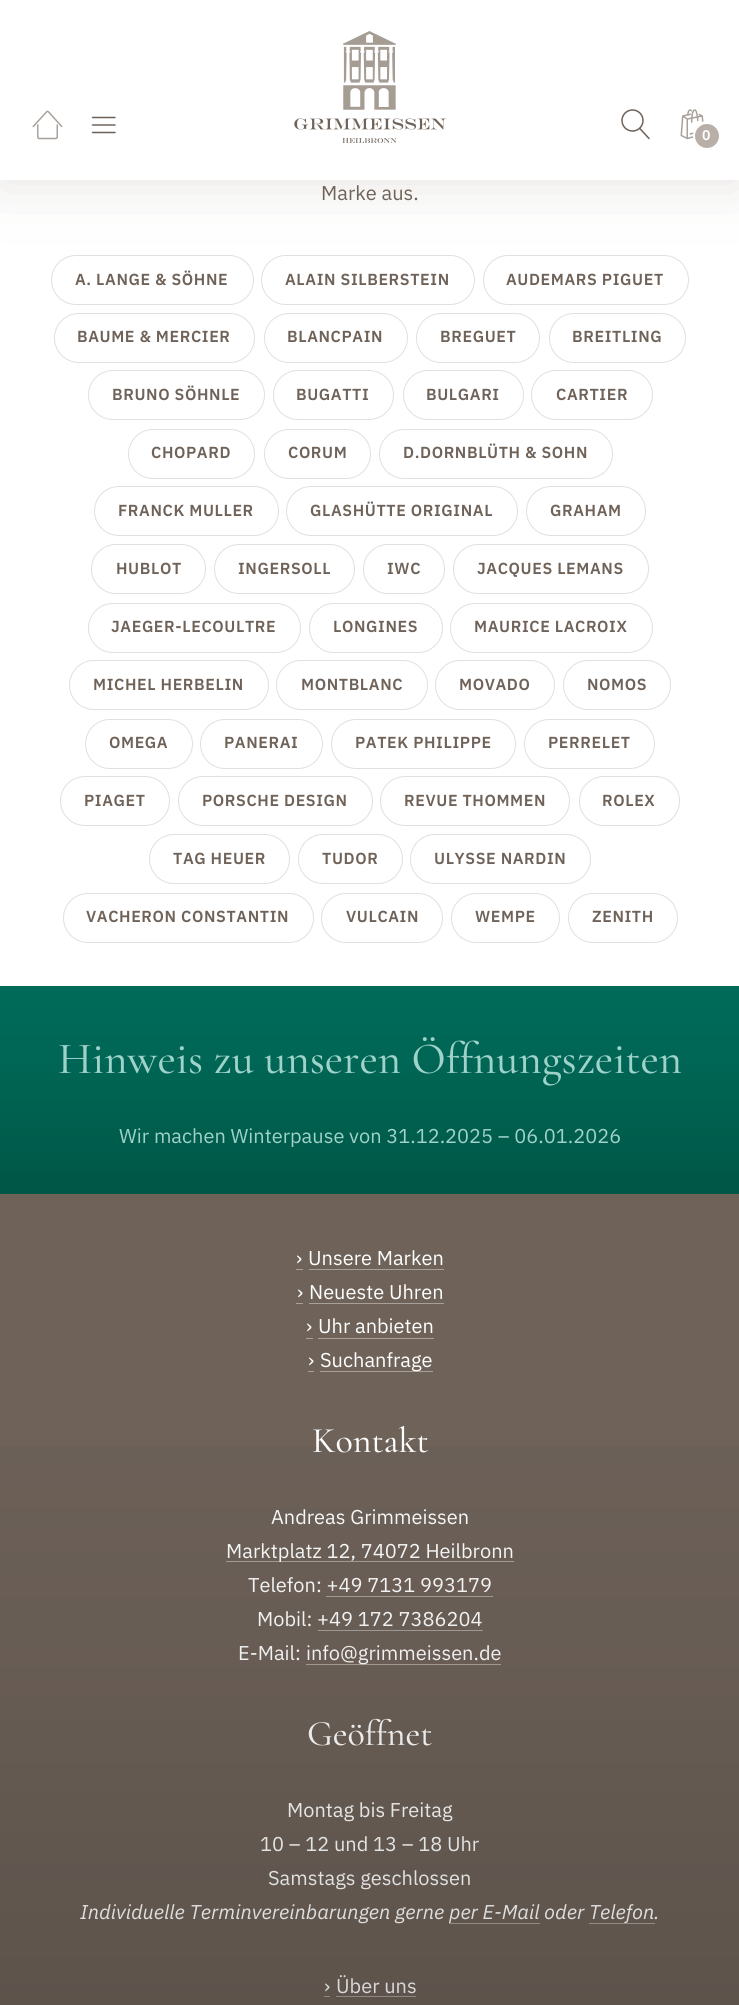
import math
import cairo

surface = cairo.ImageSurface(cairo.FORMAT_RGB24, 739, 2005)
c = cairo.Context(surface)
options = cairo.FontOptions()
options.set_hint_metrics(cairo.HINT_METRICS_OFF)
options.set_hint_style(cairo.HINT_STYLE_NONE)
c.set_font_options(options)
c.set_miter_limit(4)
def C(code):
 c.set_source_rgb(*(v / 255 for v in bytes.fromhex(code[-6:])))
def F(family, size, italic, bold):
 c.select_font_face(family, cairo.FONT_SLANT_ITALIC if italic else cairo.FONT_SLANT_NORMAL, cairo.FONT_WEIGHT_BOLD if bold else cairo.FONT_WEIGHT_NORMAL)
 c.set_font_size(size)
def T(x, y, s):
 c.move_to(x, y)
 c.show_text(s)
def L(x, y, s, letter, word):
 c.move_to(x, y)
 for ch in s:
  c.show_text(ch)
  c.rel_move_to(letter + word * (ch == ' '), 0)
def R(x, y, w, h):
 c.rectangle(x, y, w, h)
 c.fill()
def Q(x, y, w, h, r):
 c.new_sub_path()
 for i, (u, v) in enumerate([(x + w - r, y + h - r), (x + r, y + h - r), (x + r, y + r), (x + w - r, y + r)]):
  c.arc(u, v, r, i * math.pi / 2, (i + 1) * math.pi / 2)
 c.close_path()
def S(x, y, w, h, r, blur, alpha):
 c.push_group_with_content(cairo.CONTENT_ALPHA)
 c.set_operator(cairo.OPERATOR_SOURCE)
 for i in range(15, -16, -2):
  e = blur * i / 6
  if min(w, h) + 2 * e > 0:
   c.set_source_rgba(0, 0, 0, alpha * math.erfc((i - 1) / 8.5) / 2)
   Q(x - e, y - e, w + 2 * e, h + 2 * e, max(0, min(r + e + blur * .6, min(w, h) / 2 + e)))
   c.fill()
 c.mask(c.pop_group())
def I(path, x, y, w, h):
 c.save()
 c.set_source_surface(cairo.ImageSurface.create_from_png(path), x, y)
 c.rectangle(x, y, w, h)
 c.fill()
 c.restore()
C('ffffff')
c.paint()
Q(51.5,255.5,202,49,24.5)
C('e2e0de')
c.set_line_width(1)
c.stroke()
Q(261.5,255.5,213,49,24.5)
c.stroke()
Q(483.5,255.5,205,49,24.5)
c.stroke()
C('6e6259')
S(0,0,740,180,0,30,.2)
C('ffffff')
R(0,0,739,180)
I('1.png',343,31,53,79)
I('2.png',294,118,152,25)
I('3.png',32,110,31,30)
I('4.png',91,116,25,18)
I('5.png',621,109,29,31)
I('6.png',680,109,24,31)
Q(694.5,122.5,25,26,12.5)
c.set_line_width(3)
c.stroke()
C('b8afa8')
c.arc(707,136,12,0,2 * math.pi)
c.fill()
F('IBM Plex Sans SemiBold',14,0,0)
C('ffffff')
T(702,140,'0')
F('IBM Plex Sans',20,0,0)
C('6e6259')
T(321,200,'Marke aus.')
F('IBM Plex Sans SemiBold',16,0,0)
L(75,285,'A. LANGE & SÖHNE',.6,0)
L(285,285,'ALAIN SILBERSTEIN',.6,0)
L(506,285,'AUDEMARS PIGUET',.6,0)
Q(54.5,313.5,200,49,24.5)
C('e2e0de')
c.set_line_width(1)
c.stroke()
C('6e6259')
L(77,342,'BAUME & MERCIER',.6,0)
Q(264.5,313.5,143,49,24.5)
C('e2e0de')
c.stroke()
C('6e6259')
L(287,342,'BLANCPAIN',.6,0)
Q(416.5,313.5,123,49,24.5)
C('e2e0de')
c.stroke()
C('6e6259')
L(440,342,'BREGUET',.6,0)
Q(549.5,313.5,136,49,24.5)
C('e2e0de')
c.stroke()
C('6e6259')
L(572,342,'BREITLING',.6,0)
Q(88.5,370.5,176,49,24.5)
C('e2e0de')
c.stroke()
C('6e6259')
L(112,400,'BRUNO SÖHNLE',.6,0)
Q(273.5,370.5,120,49,24.5)
C('e2e0de')
c.stroke()
C('6e6259')
L(296,400,'BUGATTI',.6,0)
Q(403.5,370.5,120,49,24.5)
C('e2e0de')
c.stroke()
C('6e6259')
L(426,400,'BULGARI',.6,0)
Q(531.5,370.5,121,49,24.5)
C('e2e0de')
c.stroke()
C('6e6259')
L(556,400,'CARTIER',.6,0)
Q(128.5,429.5,126,49,24.5)
C('e2e0de')
c.stroke()
C('6e6259')
L(151,458,'CHOPARD',.6,0)
Q(264.5,429.5,106,49,24.5)
C('e2e0de')
c.stroke()
C('6e6259')
L(288,458,'CORUM',.6,0)
Q(379.5,429.5,233,49,24.5)
C('e2e0de')
c.stroke()
C('6e6259')
L(403,458,'D.DORNBLÜTH & SOHN',.6,0)
Q(94.5,486.5,184,49,24.5)
C('e2e0de')
c.stroke()
C('6e6259')
L(118,516,'FRANCK MULLER',.6,0)
Q(286.5,486.5,231,49,24.5)
C('e2e0de')
c.stroke()
C('6e6259')
L(310,516,'GLASHÜTTE ORIGINAL',.6,0)
Q(526.5,486.5,119,49,24.5)
C('e2e0de')
c.stroke()
C('6e6259')
L(550,516,'GRAHAM',.6,0)
Q(91.5,544.5,114,49,24.5)
C('e2e0de')
c.stroke()
C('6e6259')
L(116,574,'HUBLOT',.6,0)
Q(214.5,544.5,140,49,24.5)
C('e2e0de')
c.stroke()
C('6e6259')
L(238,574,'INGERSOLL',.6,0)
Q(363.5,544.5,81,49,24.5)
C('e2e0de')
c.stroke()
C('6e6259')
L(387,574,'IWC',.6,0)
Q(453.5,544.5,195,49,24.5)
C('e2e0de')
c.stroke()
C('6e6259')
L(477,574,'JACQUES LEMANS',.6,0)
Q(88.5,603.5,212,49,24.5)
C('e2e0de')
c.stroke()
C('6e6259')
L(111,632,'JAEGER-LECOULTRE',.6,0)
Q(309.5,603.5,133,49,24.5)
C('e2e0de')
c.stroke()
C('6e6259')
L(333,632,'LONGINES',.6,0)
Q(450.5,603.5,202,49,24.5)
C('e2e0de')
c.stroke()
C('6e6259')
L(474,632,'MAURICE LACROIX',.6,0)
Q(69.5,660.5,199,49,24.5)
C('e2e0de')
c.stroke()
C('6e6259')
L(93,690,'MICHEL HERBELIN',.6,0)
Q(276.5,660.5,151,49,24.5)
C('e2e0de')
c.stroke()
C('6e6259')
L(301,690,'MONTBLANC',.6,0)
Q(435.5,660.5,119,49,24.5)
C('e2e0de')
c.stroke()
C('6e6259')
L(459,690,'MOVADO',.6,0)
Q(563.5,660.5,107,49,24.5)
C('e2e0de')
c.stroke()
C('6e6259')
L(587,690,'NOMOS',.6,0)
Q(85.5,719.5,107,49,24.5)
C('e2e0de')
c.stroke()
C('6e6259')
L(109,748,'OMEGA',.6,0)
Q(200.5,719.5,122,49,24.5)
C('e2e0de')
c.stroke()
C('6e6259')
L(224,748,'PANERAI',.6,0)
Q(331.5,719.5,184,49,24.5)
C('e2e0de')
c.stroke()
C('6e6259')
L(355,748,'PATEK PHILIPPE',.6,0)
Q(524.5,719.5,130,49,24.5)
C('e2e0de')
c.stroke()
C('6e6259')
L(548,748,'PERRELET',.6,0)
Q(60.5,776.5,109,49,24.5)
C('e2e0de')
c.stroke()
C('6e6259')
L(84,806,'PIAGET',.6,0)
Q(178.5,776.5,194,49,24.5)
C('e2e0de')
c.stroke()
C('6e6259')
L(202,806,'PORSCHE DESIGN',.6,0)
Q(380.5,776.5,189,49,24.5)
C('e2e0de')
c.stroke()
C('6e6259')
L(404,806,'REVUE THOMMEN',.6,0)
Q(579.5,776.5,100,49,24.5)
C('e2e0de')
c.stroke()
C('6e6259')
L(602,806,'ROLEX',.6,0)
Q(149.5,834.5,140,49,24.5)
C('e2e0de')
c.stroke()
C('6e6259')
L(173,864,'TAG HEUER',.6,0)
Q(298.5,834.5,104,49,24.5)
C('e2e0de')
c.stroke()
C('6e6259')
L(322,864,'TUDOR',.6,0)
Q(410.5,834.5,180,49,24.5)
C('e2e0de')
c.stroke()
C('6e6259')
L(434,864,'ULYSSE NARDIN',.6,0)
Q(63.5,893.5,250,49,24.5)
C('e2e0de')
c.stroke()
C('6e6259')
L(86,922,'VACHERON CONSTANTIN',.6,0)
Q(321.5,893.5,121,49,24.5)
C('e2e0de')
c.stroke()
C('6e6259')
L(346,922,'VULCAIN',.6,0)
Q(451.5,893.5,108,49,24.5)
C('e2e0de')
c.stroke()
C('6e6259')
L(475,922,'WEMPE',.6,0)
Q(568.5,893.5,109,49,24.5)
C('e2e0de')
c.stroke()
C('6e6259')
L(592,922,'ZENITH',.6,0)
gradient = cairo.LinearGradient(370,1194,370,986)
gradient.add_color_stop_rgba(0,0,0.333,0.275,1)
gradient.add_color_stop_rgba(.19,0,0.357,0.294,1)
gradient.add_color_stop_rgba(.34,0,0.373,0.306,1)
gradient.add_color_stop_rgba(.47,0,0.384,0.318,1)
gradient.add_color_stop_rgba(.56,0,0.392,0.325,1)
gradient.add_color_stop_rgba(.65,0,0.4,0.333,1)
gradient.add_color_stop_rgba(.73,0,0.404,0.337,1)
gradient.add_color_stop_rgba(.8,0,0.408,0.341,1)
gradient.add_color_stop_rgba(.86,0,0.412,0.341,1)
gradient.add_color_stop_rgba(.91,0,0.416,0.345,1)
gradient.add_color_stop_rgba(1,0,0.416,0.345,1)
c.set_source(gradient)
R(0,986,739,208)
F('Cormorant Garamond Medium',44.75,0,0)
C('9fd2c9')
T(58,1073,'Hinweis zu unseren Öffnungszeiten')
F('IBM Plex Sans',20,0,0)
T(119,1143,'Wir machen Winterpause von 31.12.2025 – 06.01.2026')
C('6e6259')
R(0,1194,739,811)
C('ffffff')
T(296,1265,'›')
C('a8a19b')
R(296,1269,7,1)
C('ffffff')
T(308,1265,'Unsere Marken')
C('a8a19b')
R(309,1269,135,1)
C('ffffff')
T(297,1299,'›')
C('a8a19b')
R(296,1303,7,1)
C('ffffff')
T(309,1299,'Neueste Uhren')
C('a8a19b')
R(309,1303,135,1)
C('ffffff')
T(306,1333,'›')
C('a8a19b')
R(306,1338,7,1)
C('ffffff')
T(318,1333,'Uhr anbieten')
C('a8a19b')
R(318,1338,116,1)
C('ffffff')
T(308,1367,'›')
C('a8a19b')
R(308,1371,6,1)
R(320,1371,113,1)
C('ffffff')
T(320,1367,'Suchanfrage')
F('Cormorant Garamond Medium',36,0,0)
T(312,1452,'Kontakt')
F('IBM Plex Sans',20,0,0)
T(271,1524,'Andreas Grimmeissen')
C('a8a19b')
R(226,1561,288,1)
C('ffffff')
T(226,1558,'Marktplatz 12, 74072 Heilbronn')
T(248,1592,'Telefon: +49 7131 993179')
C('a8a19b')
R(326,1596,167,1)
C('ffffff')
T(257,1626,'Mobil: +49 172 7386204')
C('a8a19b')
R(318,1630,165,1)
C('ffffff')
T(238,1660,'E-Mail:')
C('a8a19b')
R(306,1664,195,1)
C('ffffff')
T(306,1660,'info@grimmeissen.de')
F('Cormorant Garamond Medium',36,0,0)
T(307,1745,'Geöffnet')
F('IBM Plex Sans',20,0,0)
T(287,1817,'Montag bis Freitag')
T(260,1851,'10 – 12 und 13 – 18 Uhr')
T(268,1885,'Samstags geschlossen')
F('IBM Plex Sans',20,1,0)
T(80,1919,'Individuelle Terminvereinbarungen gerne per E-Mail')
C('a8a19b')
R(449,1923,91,1)
C('ffffff')
T(544,1919,'oder Telefon')
T(654,1919,'.')
C('a8a19b')
R(589,1923,66,1)
F('IBM Plex Sans',20,0,0)
C('ffffff')
T(324,1993,'›')
C('a8a19b')
R(324,1996,6,1)
C('ffffff')
T(336,1993,'Über uns')
C('a8a19b')
R(336,1996,80,1)
gradient = cairo.LinearGradient(370,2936,370,1194)
gradient.add_color_stop_rgba(0,0,0,0,.5)
gradient.add_color_stop_rgba(.19,0,0,0,.37)
gradient.add_color_stop_rgba(.34,0,0,0,.27)
gradient.add_color_stop_rgba(.47,0,0,0,.19)
gradient.add_color_stop_rgba(.56,0,0,0,.14)
gradient.add_color_stop_rgba(.65,0,0,0,.1)
gradient.add_color_stop_rgba(.73,0,0,0,.06)
gradient.add_color_stop_rgba(.8,0,0,0,.04)
gradient.add_color_stop_rgba(.86,0,0,0,.02)
gradient.add_color_stop_rgba(.91,0,0,0,.01)
gradient.add_color_stop_rgba(.95,0,0,0,0)
gradient.add_color_stop_rgba(.98,0,0,0,0)
gradient.add_color_stop_rgba(1,0,0,0,0)
c.set_source(gradient)
R(0,1446,739,559)
surface.write_to_png('o.png')
